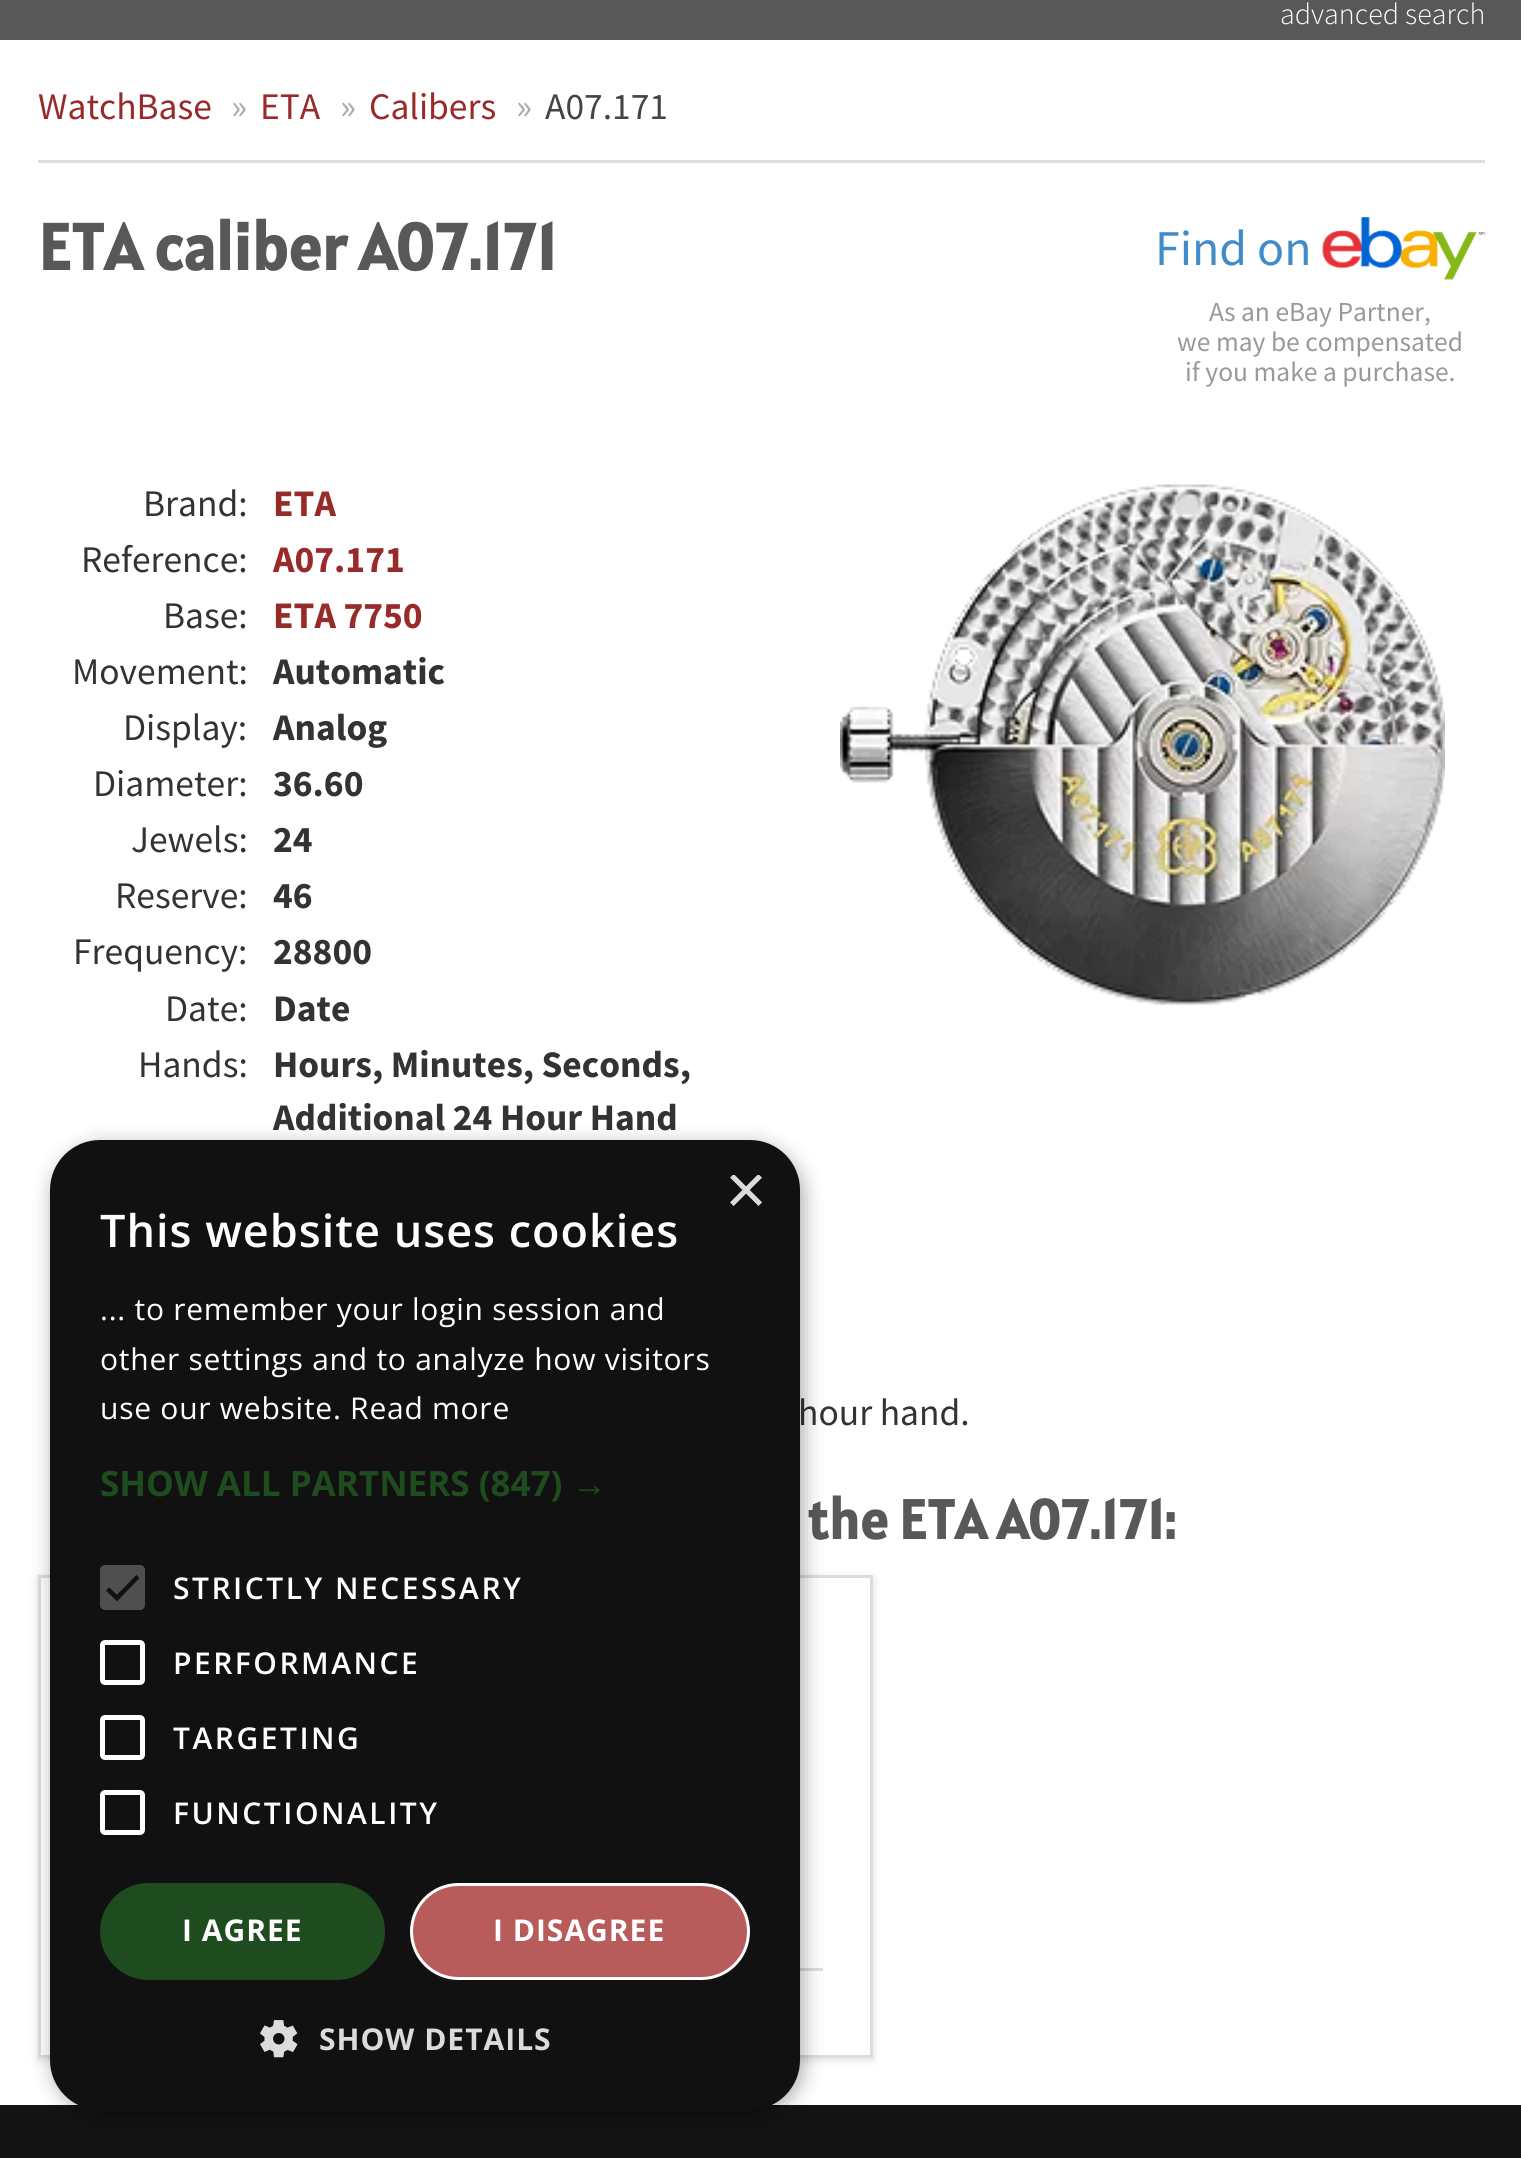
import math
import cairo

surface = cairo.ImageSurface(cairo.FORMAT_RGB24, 1521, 2158)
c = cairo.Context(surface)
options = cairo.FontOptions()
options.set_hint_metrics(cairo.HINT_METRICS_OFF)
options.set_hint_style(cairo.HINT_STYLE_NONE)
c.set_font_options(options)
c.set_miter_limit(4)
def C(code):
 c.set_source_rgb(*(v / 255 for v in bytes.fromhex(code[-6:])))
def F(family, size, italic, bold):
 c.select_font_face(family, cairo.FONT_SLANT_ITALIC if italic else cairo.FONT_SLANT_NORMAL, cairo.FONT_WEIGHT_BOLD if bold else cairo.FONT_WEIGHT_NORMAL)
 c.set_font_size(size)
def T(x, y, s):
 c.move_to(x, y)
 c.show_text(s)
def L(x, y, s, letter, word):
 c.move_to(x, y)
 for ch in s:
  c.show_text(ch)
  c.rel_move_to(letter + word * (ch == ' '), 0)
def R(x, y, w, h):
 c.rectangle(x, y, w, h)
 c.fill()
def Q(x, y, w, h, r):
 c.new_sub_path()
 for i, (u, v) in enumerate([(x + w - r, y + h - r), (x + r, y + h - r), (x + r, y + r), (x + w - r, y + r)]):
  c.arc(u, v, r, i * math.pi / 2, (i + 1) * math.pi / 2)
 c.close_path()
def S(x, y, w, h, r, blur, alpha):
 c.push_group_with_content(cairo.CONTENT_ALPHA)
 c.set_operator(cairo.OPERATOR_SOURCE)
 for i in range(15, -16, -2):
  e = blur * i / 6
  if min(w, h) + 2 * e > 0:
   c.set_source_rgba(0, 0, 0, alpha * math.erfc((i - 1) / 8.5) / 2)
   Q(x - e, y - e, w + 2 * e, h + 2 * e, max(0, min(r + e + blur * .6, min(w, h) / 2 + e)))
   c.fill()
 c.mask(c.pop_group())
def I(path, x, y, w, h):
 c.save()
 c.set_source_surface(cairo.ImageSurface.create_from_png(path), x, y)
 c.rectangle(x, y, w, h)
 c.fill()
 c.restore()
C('ffffff')
c.paint()
C('585858')
R(0,0,1521,40)
F('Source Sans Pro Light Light',30,0,0)
C('ffffff')
T(1280,24,'advanced search')
C('dddddd')
R(38,160,1447,3)
F('Source Sans Pro',37.5,0,0)
C('982a2a')
T(38,119,'WatchBase')
C('aaaaaa')
T(231,119,'»')
C('982a2a')
T(260,119,'ETA')
C('aaaaaa')
T(340,119,'»')
C('982a2a')
T(369,119,'Calibers')
C('aaaaaa')
T(516,119,'»')
C('444444')
T(545,119,'A07.171')
F('Alatsi',65,0,1)
C('585858')
T(38,270,'ETA caliber A07.171')
F('Source Sans Pro',50,0,0)
C('428bca')
T(1155,265,'Find on')
I('1.png',1322,217,163,63)
F('Source Sans Pro',27.5,0,0)
C('999999')
T(1209,321,'As an eBay Partner,')
T(1177,351,'we may be compensated')
T(1185,381,'if you make a purchase.')
F('Source Sans Pro',37.5,0,0)
C('333333')
T(143,516,'Brand:')
F('Source Sans Pro',37.5,0,1)
C('982a2a')
T(273,516,'ETA')
F('Source Sans Pro',37.5,0,0)
C('333333')
T(81,572,'Reference:')
F('Source Sans Pro',37.5,0,1)
C('982a2a')
T(273,572,'A07.171')
F('Source Sans Pro',37.5,0,0)
C('333333')
T(163,628,'Base:')
F('Source Sans Pro',37.5,0,1)
C('982a2a')
T(273,628,'ETA 7750')
F('Source Sans Pro',37.5,0,0)
C('333333')
T(72,684,'Movement:')
F('Source Sans Pro',37.5,0,1)
T(273,684,'Automatic')
F('Source Sans Pro',37.5,0,0)
T(123,740,'Display:')
F('Source Sans Pro',37.5,0,1)
T(273,740,'Analog')
F('Source Sans Pro',37.5,0,0)
T(93,796,'Diameter:')
F('Source Sans Pro',37.5,0,1)
T(273,796,'36.60')
F('Source Sans Pro',37.5,0,0)
T(131,852,'Jewels:')
F('Source Sans Pro',37.5,0,1)
T(273,852,'24')
F('Source Sans Pro',37.5,0,0)
T(115,908,'Reserve:')
F('Source Sans Pro',37.5,0,1)
T(273,908,'46')
F('Source Sans Pro',37.5,0,0)
T(73,964,'Frequency:')
F('Source Sans Pro',37.5,0,1)
T(273,964,'28800')
F('Source Sans Pro',37.5,0,0)
T(165,1021,'Date:')
F('Source Sans Pro',37.5,0,1)
T(273,1021,'Date')
F('Source Sans Pro',37.5,0,0)
T(138,1077,'Hands:')
F('Source Sans Pro',37.5,0,1)
T(273,1077,'Hours, Minutes, Seconds,')
T(273,1130,'Additional 24 Hour Hand')
I('2.png',840,484,605,521)
F('Source Sans Pro',37.5,0,0)
T(798,1425,'hour hand.')
F('Alatsi',55,0,1)
C('585858')
T(807,1539,'the ETA A07.171:')
c.save()
c.set_fill_rule(cairo.FILL_RULE_EVEN_ODD)
c.new_path()
c.move_to(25,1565)
c.line_to(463,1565)
c.line_to(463,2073)
c.line_to(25,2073)
c.close_path()
c.move_to(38,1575)
c.line_to(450,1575)
c.line_to(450,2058)
c.line_to(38,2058)
c.close_path()
c.clip()
C('dddddd')
S(38,1578,412,482,0,4,1)
c.restore()
c.rectangle(39.5,1576.5,409,480)
C('dddddd')
c.set_line_width(3)
c.stroke()
c.save()
c.set_fill_rule(cairo.FILL_RULE_EVEN_ODD)
c.new_path()
c.move_to(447,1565)
c.line_to(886,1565)
c.line_to(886,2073)
c.line_to(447,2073)
c.close_path()
c.move_to(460,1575)
c.line_to(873,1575)
c.line_to(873,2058)
c.line_to(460,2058)
c.close_path()
c.clip()
C('dddddd')
S(460,1578,413,482,0,4,1)
c.restore()
c.rectangle(461.5,1576.5,410,480)
c.stroke()
R(800,1968,23,3)
C('131313')
R(0,2105,1521,53)
C('000000')
S(53,1145,750,970,50,10,.35)
C('111111')
Q(50,1140,750,970,50)
c.fill()
c.save()
c.rectangle(725,1175,38,38)
c.clip()
F('Liberation Sans',72,0,0)
C('dbdbdb')
T(725,1214,'×')
c.restore()
F('Open Sans SemiBold',45,0,0)
C('ffffff')
L(100,1247,'This website uses cookies',1,0)
F('Open Sans',30,0,0)
L(100,1320,'... to remember your login session and',.75,0)
L(100,1370,'other settings and to analyze how visitors',.75,0)
L(100,1419,'use our website. Read more',.75,0)
F('Open Sans',35,0,1)
C('1e4c1e')
T(100,1496,'SHOW ALL PARTNERS (847)')
F('Liberation Sans',35,0,1)
T(572,1496,'→')
C('4f4f4f')
Q(100,1565,45,45,5)
c.fill()
c.new_path()
c.move_to(107.5,1589)
c.line_to(117,1598)
c.line_to(138,1576.5)
C('111111')
c.set_line_width(4.6)
c.stroke()
F('Open Sans SemiBold',30,0,0)
C('ffffff')
L(173,1599,'STRICTLY NECESSARY',2.5,0)
Q(102.5,1642.5,40,40,2.5)
c.set_line_width(5)
c.stroke()
L(173,1674,'PERFORMANCE',2.5,0)
Q(102.5,1717.5,40,40,2.5)
c.stroke()
L(173,1749,'TARGETING',2.5,0)
Q(102.5,1792.5,40,40,2.5)
c.stroke()
L(173,1824,'FUNCTIONALITY',2.5,0)
C('1e4c1e')
Q(100,1883,285,97,48.5)
c.fill()
F('Open Sans',30,0,1)
C('ffffff')
L(182,1941,'I AGREE',1,0)
C('b75b5b')
Q(411.5,1884.5,337,94,47)
c.fill_preserve()
C('ffffff')
c.set_line_width(3)
c.stroke()
L(493,1941,'I DISAGREE',1,0)
I('3.png',260,2020,38,38)
C('dbdbdb')
L(319,2050,'SHOW DETAILS',1,0)
surface.write_to_png('o.png')
